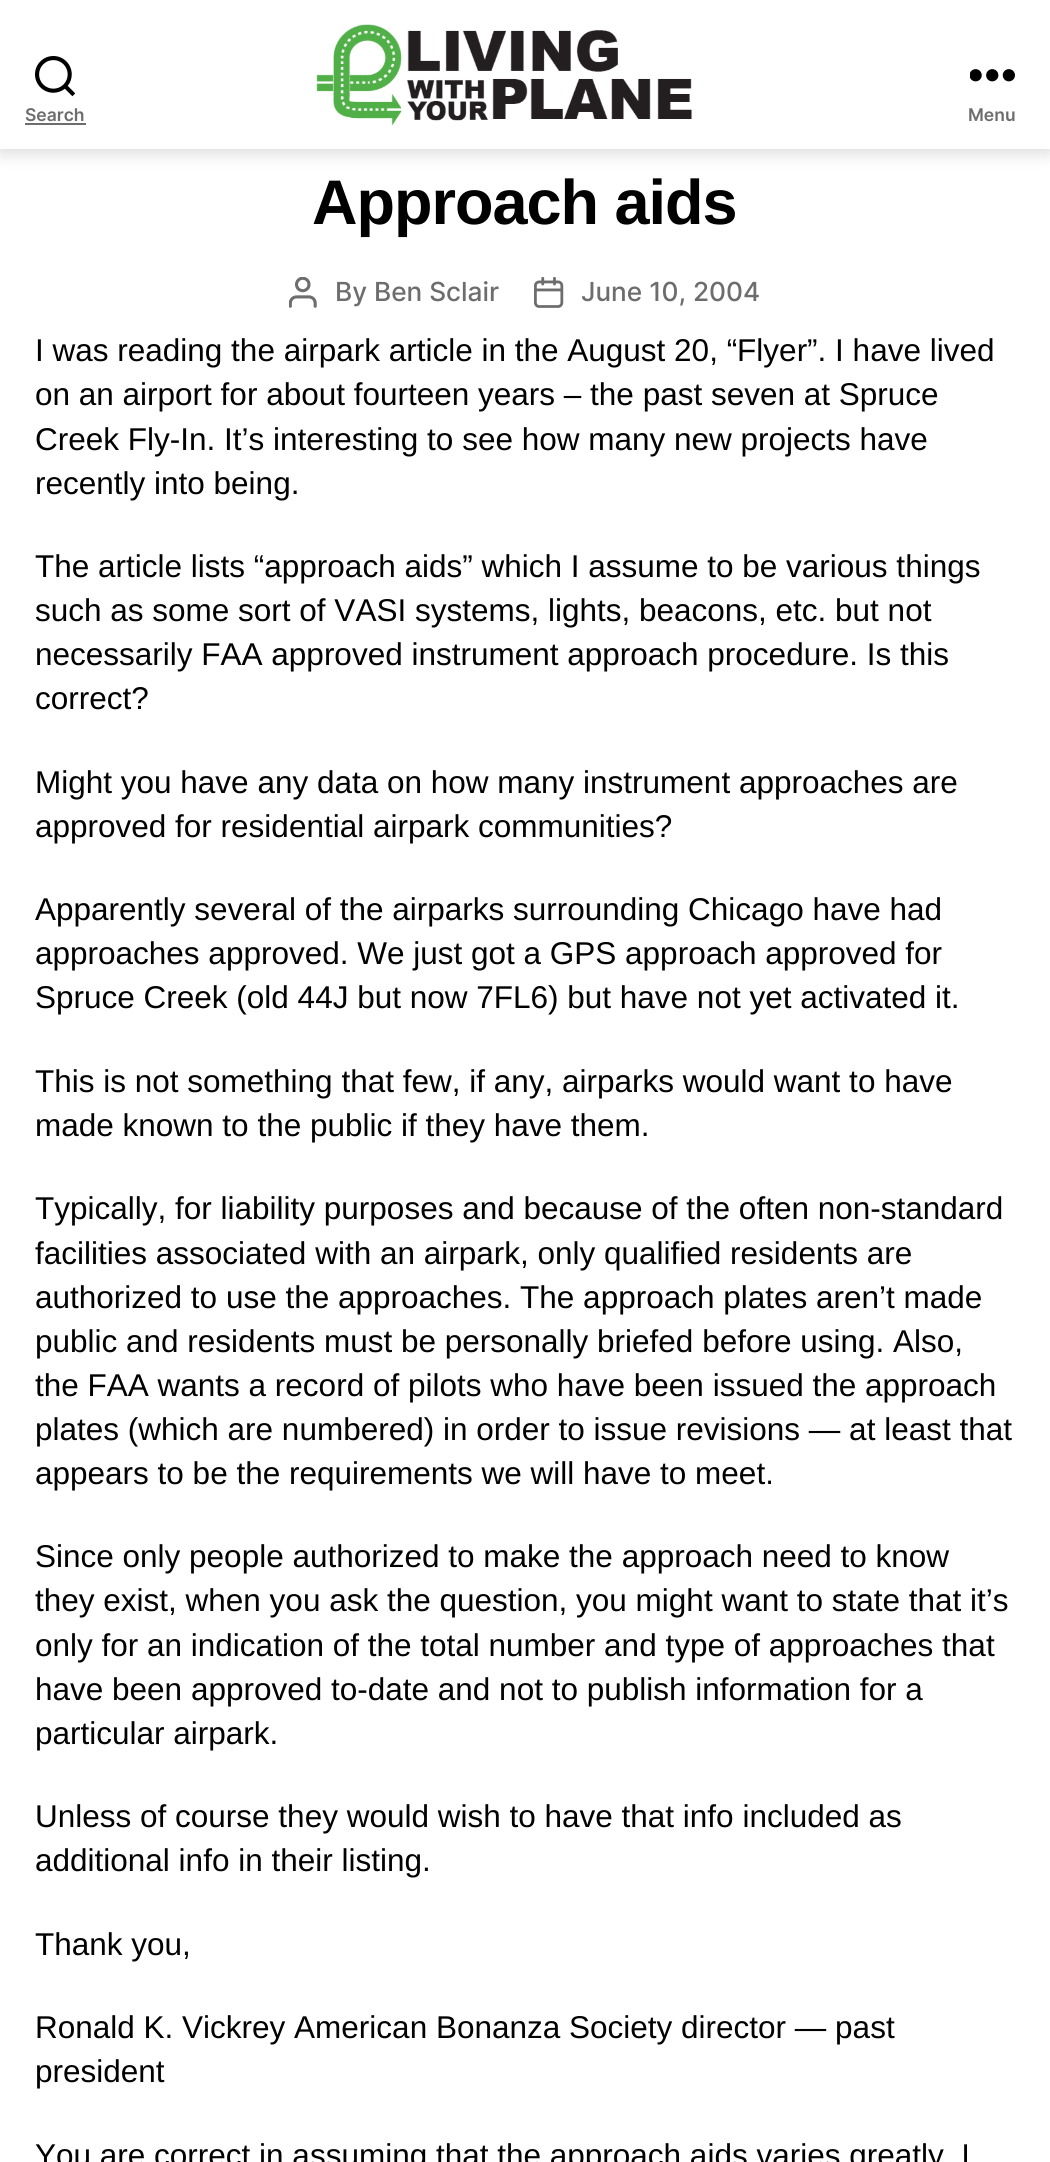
import math
import cairo

surface = cairo.ImageSurface(cairo.FORMAT_RGB24, 1050, 2162)
c = cairo.Context(surface)
options = cairo.FontOptions()
options.set_hint_metrics(cairo.HINT_METRICS_OFF)
options.set_hint_style(cairo.HINT_STYLE_NONE)
c.set_font_options(options)
c.set_miter_limit(4)
def C(code):
 c.set_source_rgb(*(v / 255 for v in bytes.fromhex(code[-6:])))
def F(family, size, italic, bold):
 c.select_font_face(family, cairo.FONT_SLANT_ITALIC if italic else cairo.FONT_SLANT_NORMAL, cairo.FONT_WEIGHT_BOLD if bold else cairo.FONT_WEIGHT_NORMAL)
 c.set_font_size(size)
def T(x, y, s):
 c.move_to(x, y)
 c.show_text(s)
def L(x, y, s, letter, word):
 c.move_to(x, y)
 for ch in s:
  c.show_text(ch)
  c.rel_move_to(letter + word * (ch == ' '), 0)
def R(x, y, w, h):
 c.rectangle(x, y, w, h)
 c.fill()
def Q(x, y, w, h, r):
 c.new_sub_path()
 for i, (u, v) in enumerate([(x + w - r, y + h - r), (x + r, y + h - r), (x + r, y + r), (x + w - r, y + r)]):
  c.arc(u, v, r, i * math.pi / 2, (i + 1) * math.pi / 2)
 c.close_path()
def S(x, y, w, h, r, blur, alpha):
 c.push_group_with_content(cairo.CONTENT_ALPHA)
 c.set_operator(cairo.OPERATOR_SOURCE)
 for i in range(15, -16, -2):
  e = blur * i / 6
  if min(w, h) + 2 * e > 0:
   c.set_source_rgba(0, 0, 0, alpha * math.erfc((i - 1) / 8.5) / 2)
   Q(x - e, y - e, w + 2 * e, h + 2 * e, max(0, min(r + e + blur * .6, min(w, h) / 2 + e)))
   c.fill()
 c.mask(c.pop_group())
def I(path, x, y, w, h):
 c.save()
 c.set_source_surface(cairo.ImageSurface.create_from_png(path), x, y)
 c.rectangle(x, y, w, h)
 c.fill()
 c.restore()
C('ffffff')
c.paint()
C('000000')
S(0,4,1050,148,0,9,.16)
C('ffffff')
R(0,0,1050,149)
I('1.png',35,56,40,41)
F('Inter SemiBold',17.5,0,0)
C('6d6d6d')
T(25,121,'Search')
R(25,123,61,2)
I('2.png',316,24,376,102)
I('3.png',970,69,45,13)
T(968,121,'Menu')
F('Liberation Sans',63,0,1)
C('000000')
L(312,224,'Approach aids',-1,0)
I('4.png',289,277,28,31)
F('Inter Medium',26.25,0,0)
C('6d6d6d')
T(335,301,'By Ben Sclair')
I('5.png',534,277,30,31)
T(581,301,'June 10, 2004')
F('Liberation Sans',31.5,0,0)
C('000000')
T(35,361,'I was reading the airpark article in the August 20, “Flyer”. I have lived')
T(35,405,'on an airport for about fourteen years – the past seven at Spruce')
T(35,450,'Creek Fly-In. It’s interesting to see how many new projects have')
T(35,494,'recently into being.')
T(35,577,'The article lists “approach aids” which I assume to be various things')
T(35,621,'such as some sort of VASI systems, lights, beacons, etc. but not')
T(35,665,'necessarily FAA approved instrument approach procedure. Is this')
T(35,709,'correct?')
T(35,793,'Might you have any data on how many instrument approaches are')
T(35,837,'approved for residential airpark communities?')
T(35,920,'Apparently several of the airparks surrounding Chicago have had')
T(35,964,'approaches approved. We just got a GPS approach approved for')
T(35,1008,'Spruce Creek (old 44J but now 7FL6) but have not yet activated it.')
T(35,1092,'This is not something that few, if any, airparks would want to have')
T(35,1136,'made known to the public if they have them.')
T(35,1219,'Typically, for liability purposes and because of the often non-standard')
T(35,1264,'facilities associated with an airpark, only qualified residents are')
T(35,1308,'authorized to use the approaches. The approach plates aren’t made')
T(35,1352,'public and residents must be personally briefed before using. Also,')
T(35,1396,'the FAA wants a record of pilots who have been issued the approach')
T(35,1440,'plates (which are numbered) in order to issue revisions — at least that')
T(35,1484,'appears to be the requirements we will have to meet.')
T(35,1567,'Since only people authorized to make the approach need to know')
T(35,1611,'they exist, when you ask the question, you might want to state that it’s')
T(35,1656,'only for an indication of the total number and type of approaches that')
T(35,1700,'have been approved to-date and not to publish information for a')
T(35,1744,'particular airpark.')
T(35,1827,'Unless of course they would wish to have that info included as')
T(35,1871,'additional info in their listing.')
T(35,1955,'Thank you,')
T(35,2038,'Ronald K. Vickrey American Bonanza Society director — past')
T(35,2082,'president')
T(35,2166,'You are correct in assuming that the approach aids varies greatly. I')
surface.write_to_png('o.png')
